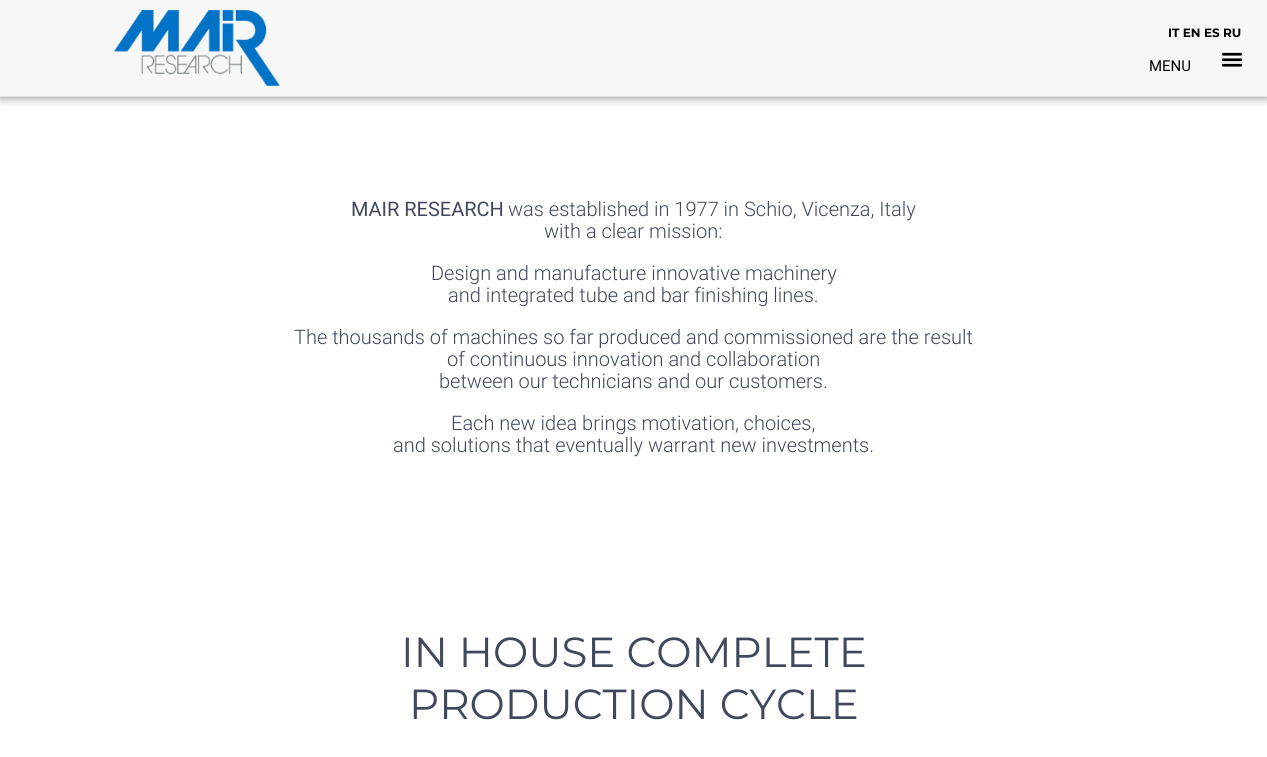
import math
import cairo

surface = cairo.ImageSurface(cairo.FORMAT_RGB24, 1267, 757)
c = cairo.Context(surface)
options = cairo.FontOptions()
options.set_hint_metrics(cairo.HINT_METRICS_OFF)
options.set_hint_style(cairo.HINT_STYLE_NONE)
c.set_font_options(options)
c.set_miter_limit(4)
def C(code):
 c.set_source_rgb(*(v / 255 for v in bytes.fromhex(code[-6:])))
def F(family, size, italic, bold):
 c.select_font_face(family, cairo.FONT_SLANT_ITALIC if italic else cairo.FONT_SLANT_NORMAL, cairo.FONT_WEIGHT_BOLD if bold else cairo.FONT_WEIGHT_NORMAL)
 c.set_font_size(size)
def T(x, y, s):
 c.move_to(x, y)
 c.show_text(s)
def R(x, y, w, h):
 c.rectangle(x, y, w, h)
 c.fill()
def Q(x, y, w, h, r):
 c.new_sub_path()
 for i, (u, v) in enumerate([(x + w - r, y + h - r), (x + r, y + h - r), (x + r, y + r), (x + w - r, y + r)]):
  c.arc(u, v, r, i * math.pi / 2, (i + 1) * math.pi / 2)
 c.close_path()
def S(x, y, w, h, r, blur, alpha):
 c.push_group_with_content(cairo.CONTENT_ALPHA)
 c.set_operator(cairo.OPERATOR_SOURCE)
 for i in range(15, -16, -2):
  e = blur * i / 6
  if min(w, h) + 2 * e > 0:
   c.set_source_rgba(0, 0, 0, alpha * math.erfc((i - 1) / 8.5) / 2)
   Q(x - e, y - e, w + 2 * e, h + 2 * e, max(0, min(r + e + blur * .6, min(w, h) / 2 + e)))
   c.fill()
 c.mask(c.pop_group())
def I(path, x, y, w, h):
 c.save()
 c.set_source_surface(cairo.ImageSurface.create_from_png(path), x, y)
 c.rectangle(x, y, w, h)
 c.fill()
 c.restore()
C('ffffff')
c.paint()
C('000000')
S(0,0,1267,97,0,5,.5)
C('f7f7f7')
R(0,0,1267,96)
C('e3e3e3')
R(0,96,1267,1)
I('1.png',114,10,166,76)
F('Montserrat',12,0,1)
C('000000')
T(1168,37,'IT EN ES RU')
F('Roboto',15,0,0)
T(1149,71,'MENU')
I('2.png',1221,52,22,15)
F('Roboto',20,0,0)
C('3f485d')
T(351,216,'MAIR RESEARCH')
F('Roboto Light',20,0,0)
T(508,216,'was established in 1977 in Schio, Vicenza, Italy')
T(544,238,'with a clear mission:')
T(431,280,'Design and manufacture innovative machinery')
T(448,302,'and integrated tube and bar finishing lines.')
T(294,344,'The thousands of machines so far produced and commissioned are the result')
T(447,366,'of continuous innovation and collaboration')
T(439,388,'between our technicians and our customers.')
T(451,430,'Each new idea brings motivation, choices,')
T(393,452,'and solutions that eventually warrant new investments.')
F('Montserrat',42,0,0)
T(401,667,'IN HOUSE COMPLETE')
T(409,719,'PRODUCTION CYCLE')
surface.write_to_png('o.png')
